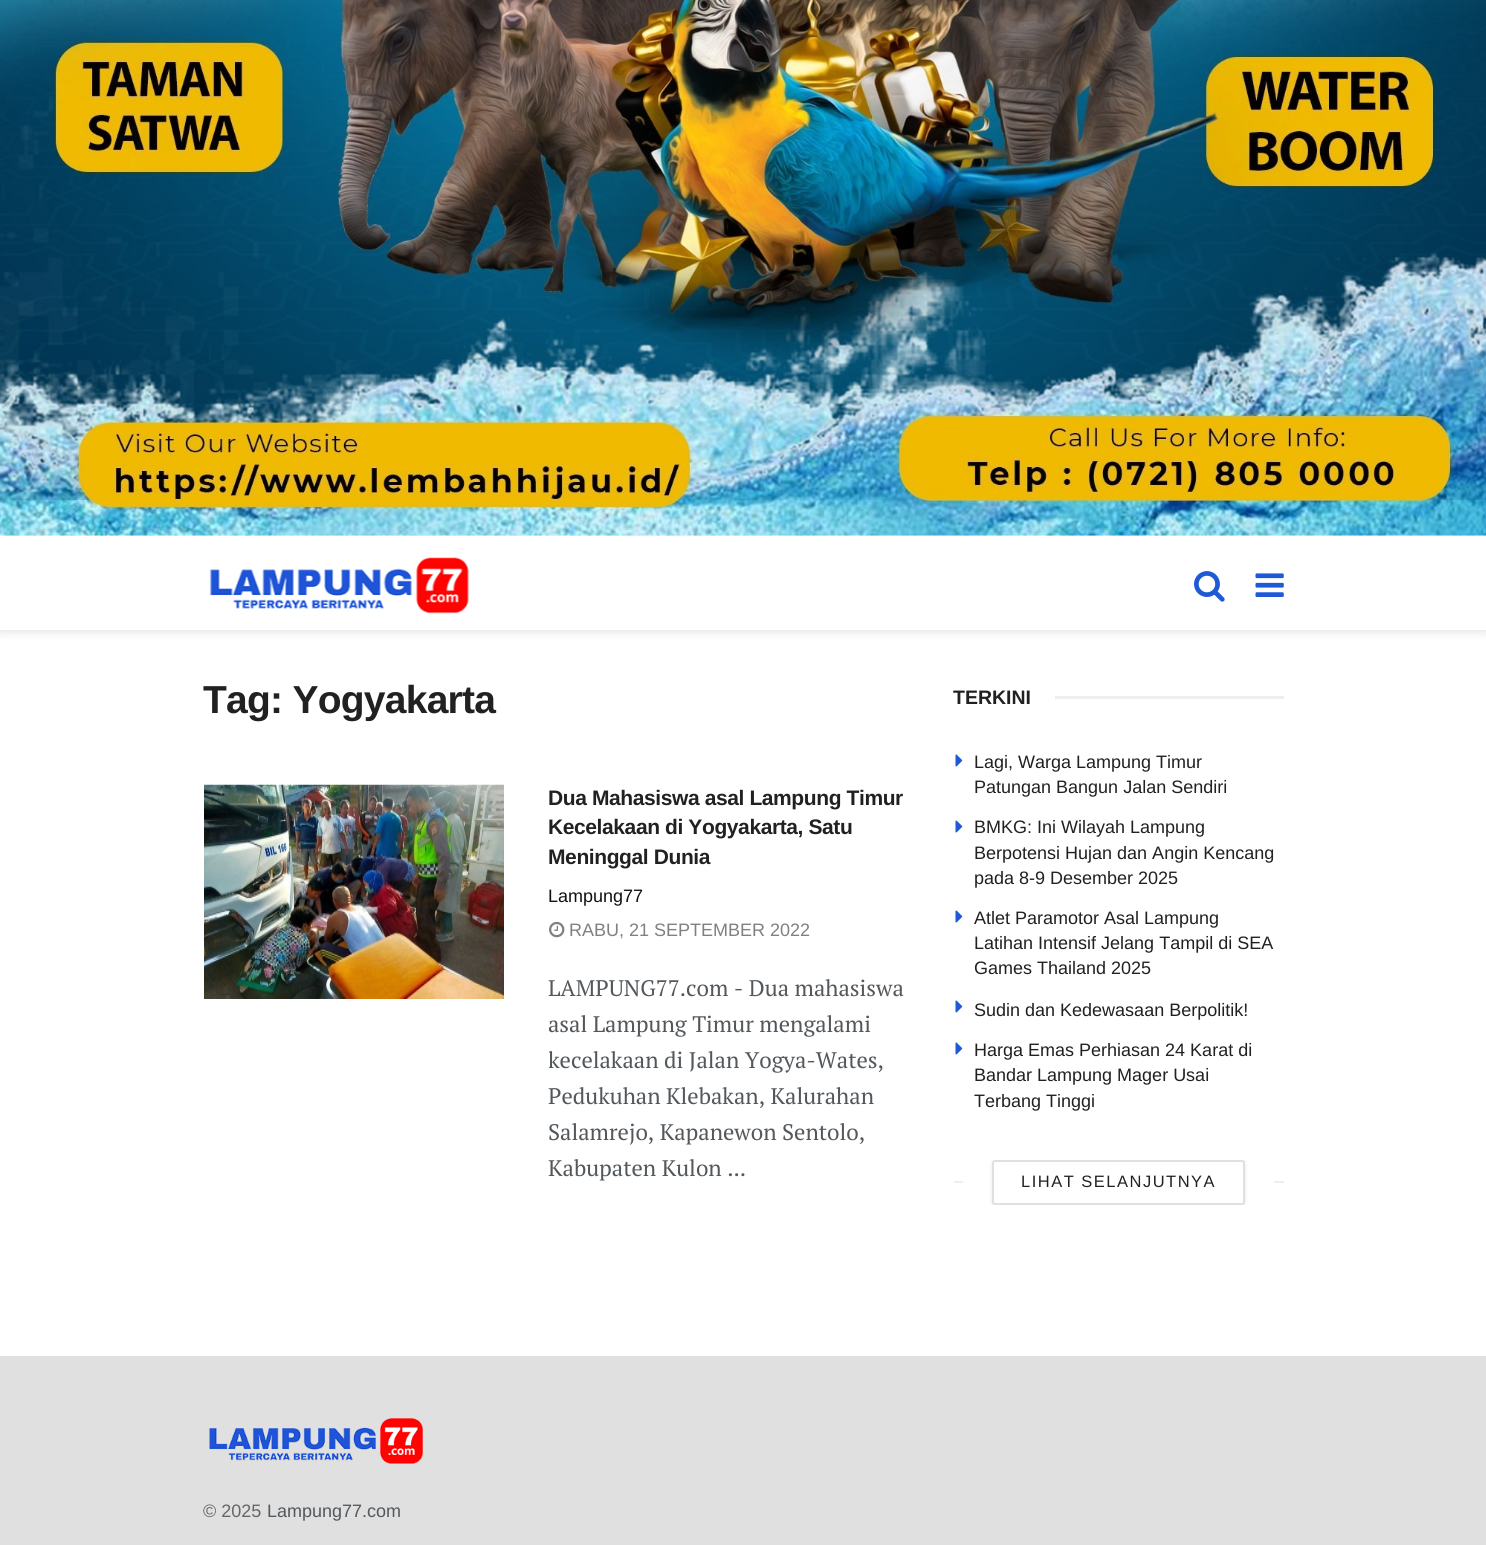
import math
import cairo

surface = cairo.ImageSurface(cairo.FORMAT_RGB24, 1486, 1545)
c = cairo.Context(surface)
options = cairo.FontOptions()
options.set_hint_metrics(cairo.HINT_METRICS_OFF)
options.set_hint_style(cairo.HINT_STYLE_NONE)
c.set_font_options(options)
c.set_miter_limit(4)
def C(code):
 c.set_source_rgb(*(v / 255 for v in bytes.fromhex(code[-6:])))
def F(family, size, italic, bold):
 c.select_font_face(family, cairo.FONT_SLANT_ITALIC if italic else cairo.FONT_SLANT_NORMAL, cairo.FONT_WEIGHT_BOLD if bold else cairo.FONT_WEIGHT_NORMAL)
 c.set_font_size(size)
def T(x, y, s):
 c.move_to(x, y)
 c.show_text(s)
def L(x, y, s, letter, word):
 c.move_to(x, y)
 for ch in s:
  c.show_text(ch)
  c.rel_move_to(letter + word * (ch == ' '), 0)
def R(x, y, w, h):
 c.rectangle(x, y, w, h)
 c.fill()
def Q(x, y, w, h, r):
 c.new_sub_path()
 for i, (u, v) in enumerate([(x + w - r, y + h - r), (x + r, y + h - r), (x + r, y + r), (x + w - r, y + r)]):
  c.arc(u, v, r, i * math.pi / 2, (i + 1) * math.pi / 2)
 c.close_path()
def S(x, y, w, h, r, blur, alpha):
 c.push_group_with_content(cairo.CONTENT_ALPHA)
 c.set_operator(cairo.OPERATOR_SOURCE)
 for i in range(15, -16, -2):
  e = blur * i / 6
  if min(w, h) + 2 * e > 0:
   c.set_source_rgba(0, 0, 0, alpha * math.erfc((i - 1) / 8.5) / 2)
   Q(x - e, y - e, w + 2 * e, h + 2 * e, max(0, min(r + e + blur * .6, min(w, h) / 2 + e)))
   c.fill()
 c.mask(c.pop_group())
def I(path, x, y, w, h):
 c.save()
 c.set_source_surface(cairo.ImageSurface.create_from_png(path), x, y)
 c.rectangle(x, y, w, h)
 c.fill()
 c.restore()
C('e0e0e0')
c.paint()
C('ffffff')
R(0,630,1486,726)
C('000000')
S(0,539,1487,94,0,4.5,.1)
C('f5f5f5')
R(0,535,1486,1)
I('1.png',0,0,1486,536)
C('ffffff')
R(0,536,1486,94)
I('2.png',209,557,260,57)
I('3.png',1194,571,31,31)
I('4.png',1255,573,29,24)
F('Liberation Sans',39,0,1)
C('212121')
L(203,713,'Tag: Yogyakarta',-.75,0)
I('5.png',204,784,300,215)
F('Liberation Sans',21,0,1)
L(548,805,'Dua Mahasiswa asal Lampung Timur',-.4,0)
L(548,834,'Kecelakaan di Yogyakarta, Satu',-.4,0)
L(548,864,'Meninggal Dunia',-.4,0)
F('Liberation Sans',18,0,0)
C('111111')
T(548,902,'Lampung77')
I('6.png',549,921,16,17)
C('808080')
T(569,936,'RABU, 21 SEPTEMBER 2022')
F('PT Serif',22.5,0,0)
C('53585c')
T(548,996,'LAMPUNG77.com - Dua mahasiswa')
T(548,1032,'asal Lampung Timur mengalami')
c.save()
c.rectangle(549,785,360,400)
c.clip()
T(548,1068,'kecelakaan di Jalan Yogya-Wates,')
c.restore()
T(548,1104,'Pedukuhan Klebakan, Kalurahan')
T(548,1140,'Salamrejo, Kapanewon Sentolo,')
T(548,1176,'Kabupaten Kulon ...')
F('Liberation Sans',19.5,0,1)
C('212121')
T(953,704,'TERKINI')
C('eeeeee')
R(1055,696,229,3)
I('7.png',955,754,8,13)
F('Liberation Sans',18,0,0)
C('212121')
T(974,768,'Lagi, Warga Lampung Timur')
T(974,793,'Patungan Bangun Jalan Sendiri')
I('7.png',955,820,8,13)
T(974,833,'BMKG: Ini Wilayah Lampung')
T(974,859,'Berpotensi Hujan dan Angin Kencang')
T(974,884,'pada 8-9 Desember 2025')
I('7.png',955,910,8,13)
T(974,924,'Atlet Paramotor Asal Lampung')
T(974,949,'Latihan Intensif Jelang Tampil di SEA')
T(974,974,'Games Thailand 2025')
I('7.png',955,1000,8,13)
T(974,1016,'Sudin dan Kedewasaan Berpolitik!')
I('7.png',955,1042,8,13)
T(974,1056,'Harga Emas Perhiasan 24 Karat di')
T(974,1081,'Bandar Lampung Mager Usai')
T(974,1107,'Terbang Tinggi')
c.save()
c.rectangle(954,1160,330,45)
c.clip()
C('000000')
S(992,1161,253,45,3,2,.1)
c.restore()
C('ffffff')
Q(993,1161,251,43,2)
c.fill_preserve()
C('e0e0e0')
c.stroke()
C('eeeeee')
R(954,1181,9,2)
F('Liberation Sans',16.5,0,0)
C('212121')
L(1021,1187,'LIHAT SELANJUTNYA',1.5,0)
C('eeeeee')
R(1274,1181,10,2)
I('8.png',209,1418,214,46)
F('Liberation Sans',18,0,0)
C('666666')
T(203,1517,'© 2025')
C('53585c')
T(267,1517,'Lampung77.com')
surface.write_to_png('o.png')
